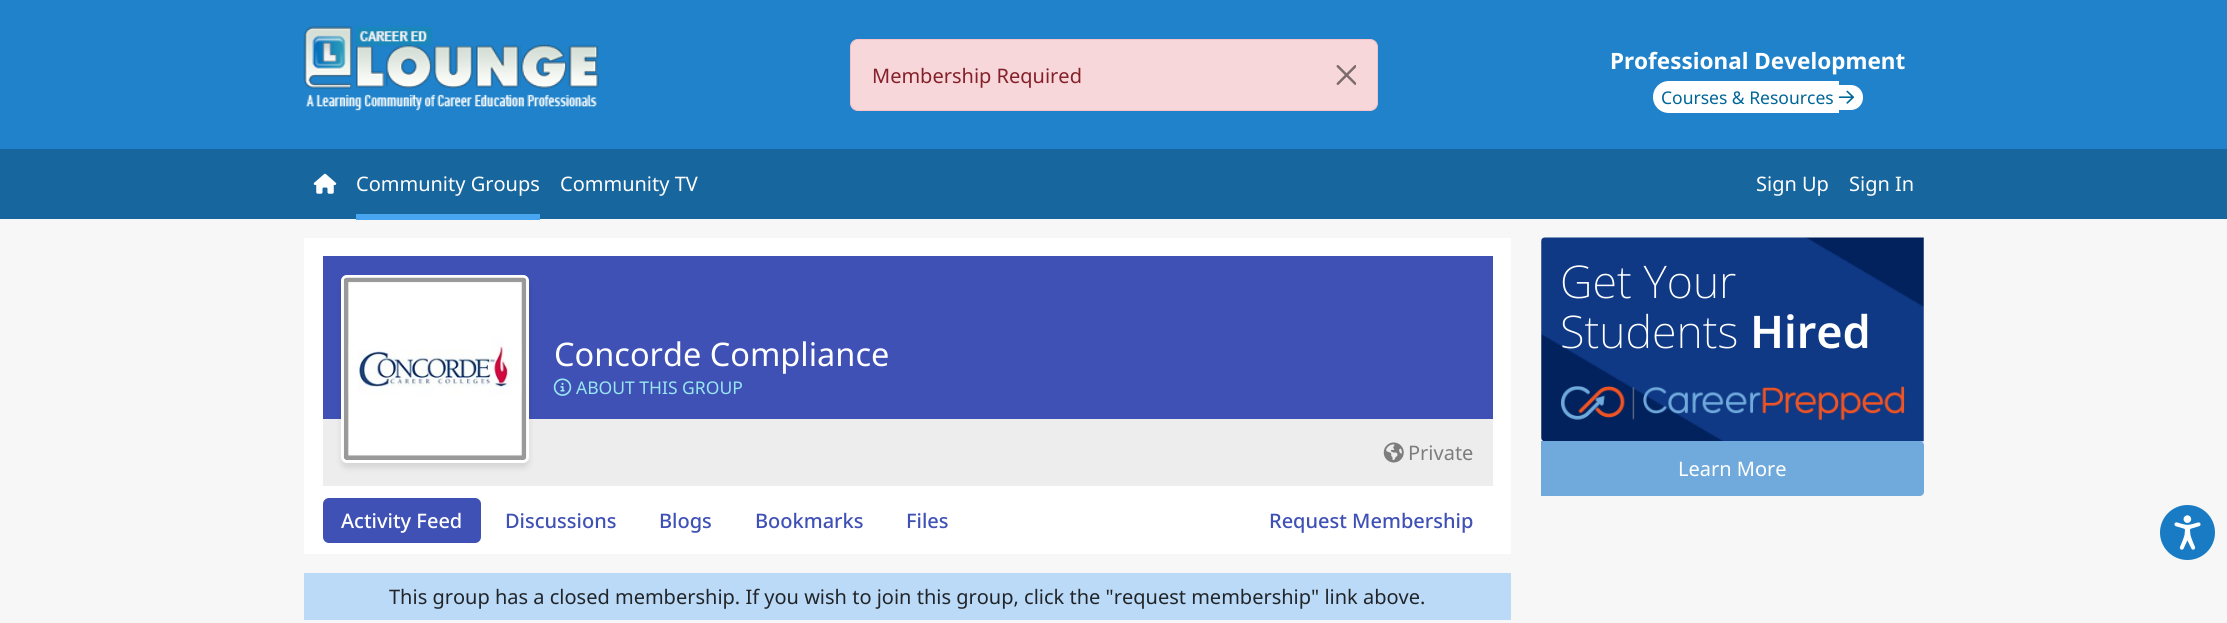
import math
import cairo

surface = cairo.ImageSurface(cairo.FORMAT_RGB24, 2227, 623)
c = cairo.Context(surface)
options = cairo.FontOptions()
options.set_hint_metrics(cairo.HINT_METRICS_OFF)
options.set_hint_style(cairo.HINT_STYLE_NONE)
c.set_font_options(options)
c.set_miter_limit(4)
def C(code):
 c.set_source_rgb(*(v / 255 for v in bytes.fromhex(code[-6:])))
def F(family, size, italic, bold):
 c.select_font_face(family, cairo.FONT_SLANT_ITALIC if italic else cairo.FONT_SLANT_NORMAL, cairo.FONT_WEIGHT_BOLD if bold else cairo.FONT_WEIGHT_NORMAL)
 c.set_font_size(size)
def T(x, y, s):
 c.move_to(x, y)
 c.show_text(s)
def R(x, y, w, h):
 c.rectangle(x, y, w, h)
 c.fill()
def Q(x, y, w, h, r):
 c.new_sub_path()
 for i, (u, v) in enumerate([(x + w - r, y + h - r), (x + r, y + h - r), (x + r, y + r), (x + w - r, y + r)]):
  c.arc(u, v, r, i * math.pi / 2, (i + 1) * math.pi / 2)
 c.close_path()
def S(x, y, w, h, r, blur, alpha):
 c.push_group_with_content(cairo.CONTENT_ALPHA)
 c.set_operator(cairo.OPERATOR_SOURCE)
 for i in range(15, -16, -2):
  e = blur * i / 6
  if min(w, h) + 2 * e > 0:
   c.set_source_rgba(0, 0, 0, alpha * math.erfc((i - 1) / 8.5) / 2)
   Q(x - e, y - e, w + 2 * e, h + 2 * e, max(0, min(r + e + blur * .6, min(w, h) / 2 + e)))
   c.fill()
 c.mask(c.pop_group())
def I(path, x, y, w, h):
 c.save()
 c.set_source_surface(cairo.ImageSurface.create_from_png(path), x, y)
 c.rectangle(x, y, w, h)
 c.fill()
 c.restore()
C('f7f7f7')
c.paint()
C('1f82ca')
R(0,0,2227,149)
I('1.png',303,26,296,85)
F('Noto Sans',22.5,0,1)
C('ffffff')
T(1610,69,'Professional Development')
c.new_path()
c.move_to(1669,81)
c.line_to(1839,81)
c.line_to(1839,113)
c.line_to(1669,113)
c.curve_to(1660,113,1653,106,1653,97)
c.curve_to(1653,88,1660,81,1669,81)
c.close_path()
c.fill()
c.new_path()
c.move_to(1839,85)
c.line_to(1851,85)
c.curve_to(1857.5,85,1863,90.5,1863,97)
c.line_to(1863,98)
c.curve_to(1863,104.5,1857.5,110,1851,110)
c.line_to(1839,110)
c.close_path()
c.fill()
F('Noto Sans',17.5,0,0)
C('006699')
T(1661,104,'Courses & Resources')
I('2.png',1838,90,16,14)
C('18669e')
R(0,149,2227,70)
I('3.png',313,173,24,21)
F('Noto Sans',20,0,0)
C('ffffff')
T(356,191,'Community Groups')
C('48a6f1')
R(356,214,184,6)
C('ffffff')
T(560,191,'Community TV')
T(1756,191,'Sign Up')
T(1849,191,'Sign In')
C('f8d7da')
Q(850.5,39.5,527,71,7.5)
c.fill_preserve()
C('f5c2c7')
c.set_line_width(1)
c.stroke()
C('842029')
T(872,83,'Membership Required')
I('4.png',1336,65,20,20)
C('ffffff')
R(304,238,1207,316)
C('3f51b5')
R(323,256,1170,163)
C('ededed')
R(323,419,1170,67)
C('000000')
S(341,280,188,188,6,3,.1)
I('5.png',341,275,188,188)
Q(342.5,276.5,185,185,4.5)
C('ffffff')
c.set_line_width(3)
c.stroke()
I('7.png',553,378,19,18)
C('3f51b5')
Q(323,498,158,45,6)
c.fill()
C('bbdaf7')
R(304,573,1207,47)
c.save()
Q(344,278,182,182,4)
c.clip()
C('18669e')
S(306,240,258,258,44,37.5,.8)
c.restore()
I('6.png',343,277,184,183)
F('Noto Sans',32.5,0,0)
C('ffffff')
T(554,366,'Concorde Compliance')
F('Noto Sans',17.5,0,0)
C('97e8f2')
T(576,394,'ABOUT THIS GROUP')
I('8.png',1383,442,21,21)
F('Noto Sans',20,0,0)
C('7d7d7d')
T(1408,460,'Private')
F('Noto Sans Medium',20,0,0)
C('ffffff')
T(341,528,'Activity Feed')
C('3f51b5')
T(505,528,'Discussions')
T(659,528,'Blogs')
T(755,528,'Bookmarks')
T(906,528,'Files')
T(1269,528,'Request Membership')
F('Noto Sans',20,0,0)
C('212529')
T(389,604,'This group has a closed membership. If you wish to join this group, click the "request membership" link above.')
I('9.png',1541,237,383,205)
F('Noto Sans ExtraLight',45,0,0)
C('ffffff')
T(1560,298,'Get Your')
T(1560,348,'Students')
F('Noto Sans SemiBold',45,0,0)
T(1750,348,'Hired')
I('10.png',1561,386,344,34)
C('70aadc')
c.new_path()
c.move_to(1541,441)
c.line_to(1920,441)
c.curve_to(1922,441,1924,443,1924,445)
c.line_to(1924,492)
c.curve_to(1924,494,1922,496,1920,496)
c.line_to(1541,496)
c.close_path()
c.fill()
F('Noto Sans',20,0,0)
C('ffffff')
T(1678,476,'Learn More')
C('187bc3')
c.new_path()
c.arc(2187.5,532.5,27.5,0,2 * math.pi)
c.fill()
I('11.png',2174,515,27,35)
surface.write_to_png('o.png')
